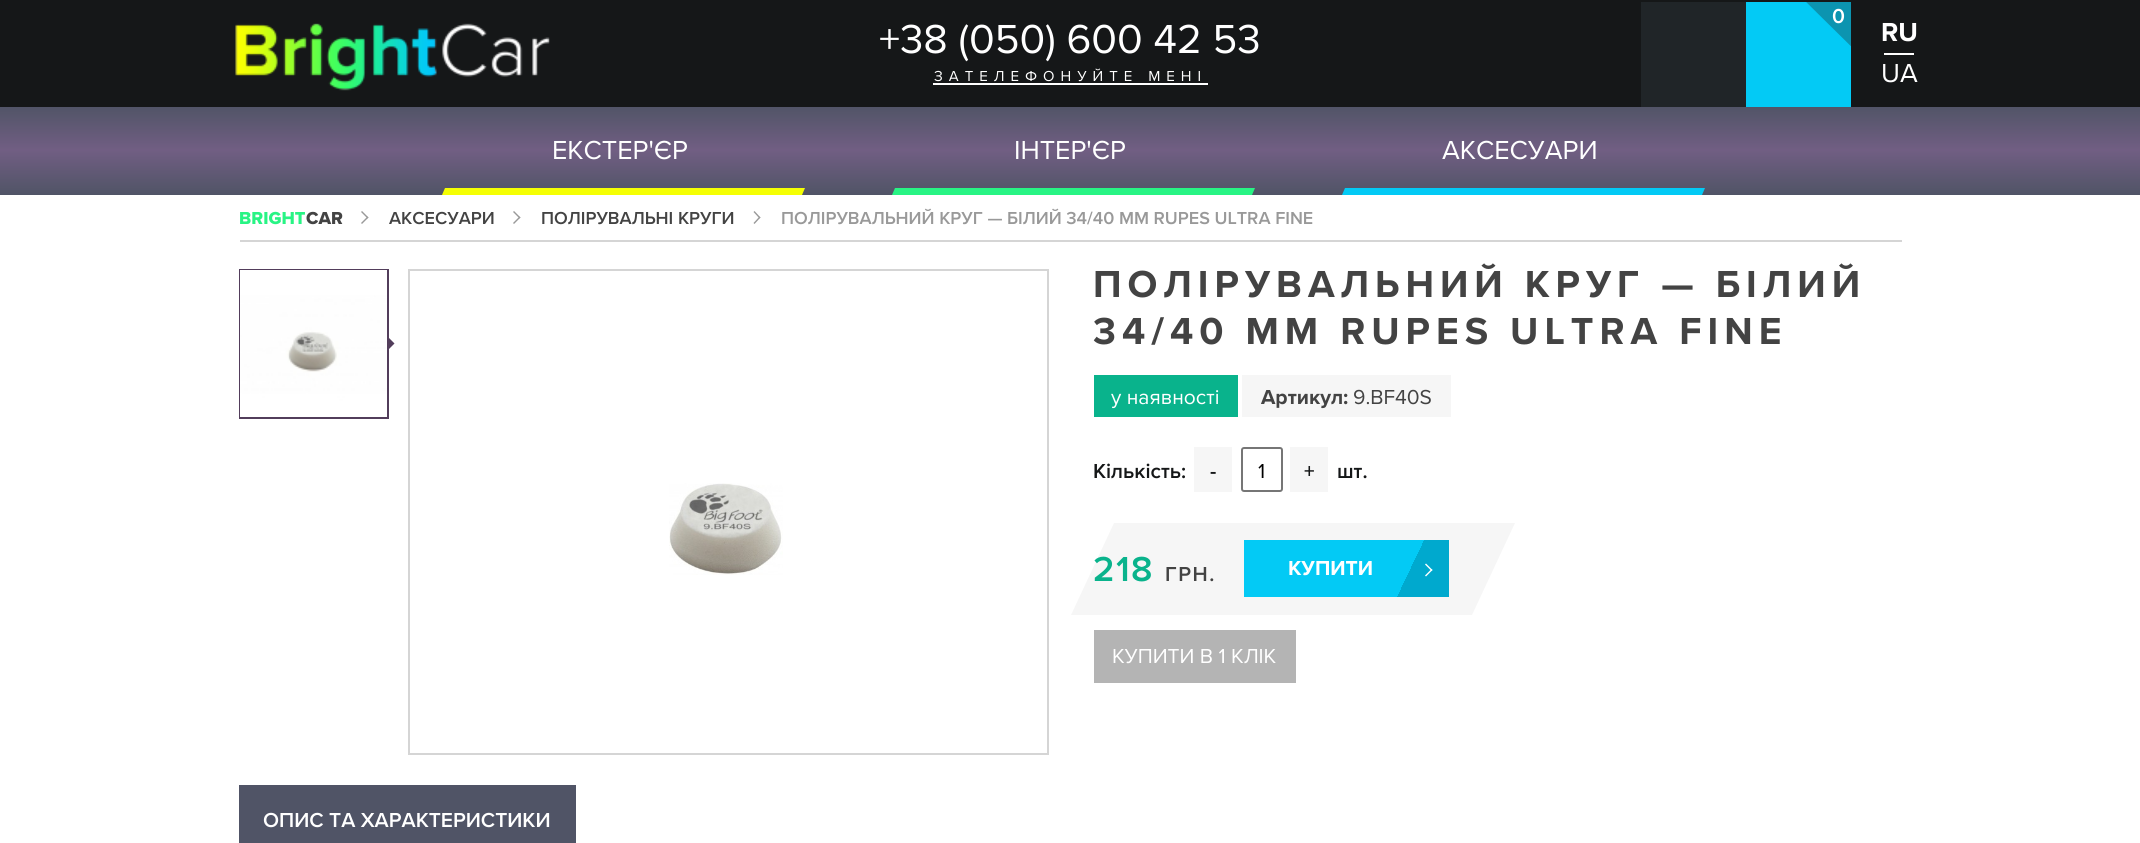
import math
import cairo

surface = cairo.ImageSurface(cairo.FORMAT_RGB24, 2140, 843)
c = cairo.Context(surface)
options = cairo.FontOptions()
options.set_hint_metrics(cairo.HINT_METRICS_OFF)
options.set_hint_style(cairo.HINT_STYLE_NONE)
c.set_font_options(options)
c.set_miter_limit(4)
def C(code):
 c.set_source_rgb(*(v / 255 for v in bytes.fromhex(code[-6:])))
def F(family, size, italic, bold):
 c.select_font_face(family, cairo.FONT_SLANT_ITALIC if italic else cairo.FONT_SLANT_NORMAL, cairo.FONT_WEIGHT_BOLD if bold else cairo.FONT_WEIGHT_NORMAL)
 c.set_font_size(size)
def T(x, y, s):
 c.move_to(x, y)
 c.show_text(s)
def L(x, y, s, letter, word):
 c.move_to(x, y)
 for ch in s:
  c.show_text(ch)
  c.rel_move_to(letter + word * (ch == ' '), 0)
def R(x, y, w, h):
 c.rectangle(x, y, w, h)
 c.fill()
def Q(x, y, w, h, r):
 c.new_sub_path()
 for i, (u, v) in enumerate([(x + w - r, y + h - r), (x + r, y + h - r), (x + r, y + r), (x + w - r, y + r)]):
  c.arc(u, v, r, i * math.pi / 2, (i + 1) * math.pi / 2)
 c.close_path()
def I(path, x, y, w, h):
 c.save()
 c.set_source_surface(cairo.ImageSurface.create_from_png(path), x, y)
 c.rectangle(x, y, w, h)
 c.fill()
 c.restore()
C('ffffff')
c.paint()
C('151718')
R(0,0,2140,107)
I('1.png',235,23,315,68)
F('Proxima Nova',42,0,0)
C('ffffff')
T(879,53,'+38 (050) 600 42 53')
F('Proxima Nova',15,0,0)
L(934,81,'ЗАТЕЛЕФОНУЙТЕ МЕНІ',6,0)
R(933,83,275,2)
C('202528')
R(1641,2,105,105)
C('03caf5')
R(1746,2,105,105)
c.save()
c.rectangle(1746,2,105,105)
c.clip()
C('0c94b0')
c.new_path()
c.move_to(1827,-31)
c.line_to(1901,43)
c.line_to(1875,70)
c.line_to(1800,-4)
c.close_path()
c.fill()
c.restore()
F('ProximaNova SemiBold',21,0,0)
C('ffffff')
T(1832,23,'0')
F('Proxima Nova',27,0,1)
T(1881,41,'RU')
R(1884,53,30,2)
F('Proxima Nova',27,0,0)
T(1881,82,'UA')
gradient = cairo.LinearGradient(1070,105,1070,195)
gradient.add_color_stop_rgba(0,0.314,0.329,0.4,1)
gradient.add_color_stop_rgba(.5,0.443,0.369,0.514,1)
gradient.add_color_stop_rgba(1,0.314,0.329,0.4,1)
c.set_source(gradient)
R(0,107,2140,88)
C('ffffff')
T(552,159,'ЕКСТЕР\'ЄР')
C('f5ff03')
c.new_path()
c.move_to(445,188)
c.line_to(805,188)
c.line_to(802,195)
c.line_to(442,195)
c.close_path()
c.fill()
C('ffffff')
T(1014,159,'ІНТЕР\'ЄР')
C('28f484')
c.new_path()
c.move_to(895,188)
c.line_to(1255,188)
c.line_to(1252,195)
c.line_to(892,195)
c.close_path()
c.fill()
C('ffffff')
T(1442,159,'АКСЕСУАРИ')
C('03caf5')
c.new_path()
c.move_to(1345,188)
c.line_to(1705,188)
c.line_to(1702,195)
c.line_to(1342,195)
c.close_path()
c.fill()
F('Proxima Nova ExtraBold',18,0,0)
C('28f484')
T(239,224,'BRIGHT')
C('434343')
T(306,224,'CAR')
C('999999')
c.new_path()
c.move_to(362,211)
c.line_to(368.5,217.5)
c.line_to(367.5,218.5)
c.line_to(361,212)
c.close_path()
c.fill()
c.new_path()
c.move_to(367.5,216.5)
c.line_to(368.5,217.5)
c.line_to(362,224)
c.line_to(361,223)
c.close_path()
c.fill()
F('ProximaNova SemiBold',18,0,0)
C('434343')
T(389,224,'АКСЕСУАРИ')
C('999999')
c.new_path()
c.move_to(514,211)
c.line_to(520.5,217.5)
c.line_to(519.5,218.5)
c.line_to(513,212)
c.close_path()
c.fill()
c.new_path()
c.move_to(519.5,216.5)
c.line_to(520.5,217.5)
c.line_to(514,224)
c.line_to(513,223)
c.close_path()
c.fill()
C('434343')
T(541,224,'ПОЛІРУВАЛЬНІ КРУГИ')
C('999999')
c.new_path()
c.move_to(754.5,211)
c.line_to(760.5,217.5)
c.line_to(759.5,218.5)
c.line_to(753.5,212)
c.close_path()
c.fill()
c.new_path()
c.move_to(759.5,216.5)
c.line_to(760.5,217.5)
c.line_to(754.5,224)
c.line_to(753.5,223)
c.close_path()
c.fill()
T(781,224,'ПОЛІРУВАЛЬНИЙ КРУГ — БІЛИЙ 34/40 ММ RUPES ULTRA FINE')
C('d5d5d5')
R(240,240,1662,2)
c.rectangle(240,270,148,148)
C('523d5b')
c.stroke()
I('2.png',240,270,147,147)
c.new_path()
c.move_to(387,351)
c.line_to(387,336)
c.line_to(394.5,343.5)
c.close_path()
c.fill()
c.rectangle(409,270,639,484)
C('d5d5d5')
c.stroke()
I('3.png',669,483,114,92)
F('Proxima Nova',39,0,1)
C('434343')
L(1093,297,'ПОЛІРУВАЛЬНИЙ КРУГ — БІЛИЙ',6,0)
L(1093,344,'34/40 ММ RUPES ULTRA FINE',6,0)
C('09b38c')
R(1094,375,144,42)
F('Proxima Nova',21,0,0)
C('ffffff')
T(1111,404,'у наявності')
C('f6f6f6')
R(1242,375,209,42)
F('Proxima Nova',21,0,1)
C('434343')
T(1261,404,'Артикул:')
F('Proxima Nova',21,0,0)
T(1353,404,'9.BF40S')
F('ProximaNova SemiBold',21,0,0)
C('151718')
T(1093,478,'Кількість:')
C('f6f6f6')
R(1194,447,38,45)
C('151718')
T(1210,478,'-')
Q(1242,448,40,43,2)
C('767676')
c.stroke()
F('Proxima Nova',21,0,0)
C('000000')
T(1258,478,'1')
C('f6f6f6')
R(1290,447,38,45)
F('ProximaNova SemiBold',21,0,0)
C('151718')
T(1304,478,'+')
T(1337,478,'шт.')
C('f6f6f6')
c.new_path()
c.move_to(1114,523)
c.line_to(1515,523)
c.line_to(1472,615)
c.line_to(1071,615)
c.close_path()
c.fill()
F('ProximaNova SemiBold',36,0,0)
C('09b38c')
L(1093,581,'218',1.5,0)
F('ProximaNova SemiBold',21,0,0)
C('434343')
L(1165,581,'ГРН.',1.5,0)
C('03caf5')
R(1244,540,153,57)
F('Proxima Nova',21,0,1)
C('ffffff')
T(1288,575,'КУПИТИ')
gradient = cairo.LinearGradient(1455,584,1390,553)
gradient.add_color_stop_rgba(.65,0,0.663,0.808,1)
gradient.add_color_stop_rgba(.65,0.012,0.792,0.961,1)
c.set_source(gradient)
R(1397,540,52,57)
C('ffffff')
c.new_path()
c.move_to(1426,563.5)
c.line_to(1432.5,570)
c.line_to(1431.5,571)
c.line_to(1425,564.5)
c.close_path()
c.fill()
c.new_path()
c.move_to(1431.5,569)
c.line_to(1432.5,570)
c.line_to(1426,576.5)
c.line_to(1425,575.5)
c.close_path()
c.fill()
C('b4b4b4')
R(1094,630,202,53)
F('Proxima Nova',21,0,0)
C('ffffff')
T(1112,663,'КУПИТИ В 1 КЛІК')
C('505466')
R(239,785,337,58)
F('ProximaNova SemiBold',21,0,0)
C('ffffff')
T(263,827,'ОПИС ТА ХАРАКТЕРИСТИКИ')
surface.write_to_png('o.png')
